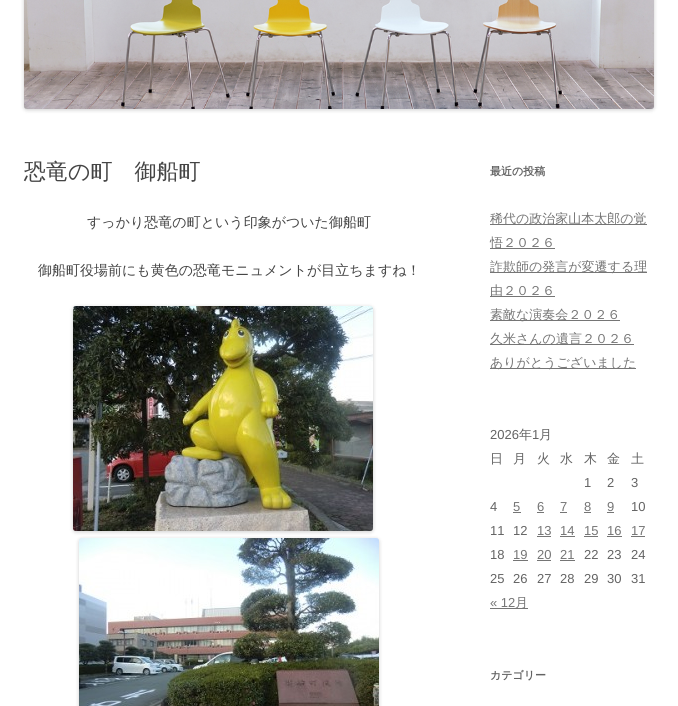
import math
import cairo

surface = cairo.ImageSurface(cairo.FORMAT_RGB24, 678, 706)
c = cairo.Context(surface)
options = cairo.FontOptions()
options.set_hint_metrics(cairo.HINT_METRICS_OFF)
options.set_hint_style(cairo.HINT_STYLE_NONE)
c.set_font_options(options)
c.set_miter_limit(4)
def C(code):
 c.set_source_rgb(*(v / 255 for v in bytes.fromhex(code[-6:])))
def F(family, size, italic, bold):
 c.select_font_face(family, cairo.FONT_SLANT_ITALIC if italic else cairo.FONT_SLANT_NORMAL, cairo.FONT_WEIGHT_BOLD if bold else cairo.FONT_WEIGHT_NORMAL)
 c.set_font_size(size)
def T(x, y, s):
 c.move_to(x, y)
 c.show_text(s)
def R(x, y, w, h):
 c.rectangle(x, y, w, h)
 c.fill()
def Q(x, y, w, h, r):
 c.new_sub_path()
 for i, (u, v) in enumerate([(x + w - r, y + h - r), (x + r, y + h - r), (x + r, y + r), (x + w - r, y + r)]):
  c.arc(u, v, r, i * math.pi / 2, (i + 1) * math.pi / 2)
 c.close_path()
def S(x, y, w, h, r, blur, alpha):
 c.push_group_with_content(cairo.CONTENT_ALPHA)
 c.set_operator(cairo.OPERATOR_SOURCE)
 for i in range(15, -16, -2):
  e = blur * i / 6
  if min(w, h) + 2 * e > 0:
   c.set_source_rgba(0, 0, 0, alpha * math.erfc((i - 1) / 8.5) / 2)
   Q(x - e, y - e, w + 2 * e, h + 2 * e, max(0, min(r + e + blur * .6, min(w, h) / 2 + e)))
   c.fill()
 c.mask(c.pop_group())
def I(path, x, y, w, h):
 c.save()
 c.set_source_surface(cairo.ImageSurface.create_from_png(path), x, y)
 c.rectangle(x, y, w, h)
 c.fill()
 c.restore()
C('ffffff')
c.paint()
C('000000')
S(24,-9,630,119,3,2,.2)
I('1.png',24,0,630,109)
F('WenQuanYi Zen Hei Medium',22,0,0)
C('444444')
T(24,179,'恐竜の町　御船町')
F('WenQuanYi Zen Hei Medium',14,0,0)
T(87,227,'すっかり恐竜の町という印象がついた御船町')
T(38,275,'御船町役場前にも黄色の恐竜モニュメントが目立ちますね！')
C('000000')
S(73,307,300,225,3,2,.2)
I('2.png',73,306,300,225)
S(79,539,300,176,3,2,.2)
I('3.png',79,538,300,168)
F('WenQuanYi Zen Hei',11,0,1)
C('636363')
T(490,175,'最近の投稿')
C('757575')
R(490,224,157,1)
F('WenQuanYi Zen Hei Medium',13,0,0)
T(490,223,'稀代の政治家山本太郎の覚')
R(490,248,65,1)
T(490,247,'悟２０２６')
R(490,272,157,1)
T(490,271,'詐欺師の発言が変遷する理')
R(490,296,65,1)
T(490,295,'由２０２６')
R(490,320,130,1)
T(490,319,'素敵な演奏会２０２６')
R(490,344,144,1)
T(490,343,'久米さんの遺言２０２６')
R(490,368,146,1)
T(490,367,'ありがとうございました')
F('Liberation Sans',13,0,0)
C('636363')
T(490,439,'2026')
F('WenQuanYi Zen Hei Medium',13,0,0)
T(519,439,'年')
F('Liberation Sans',13,0,0)
T(532,439,'1')
F('WenQuanYi Zen Hei Medium',13,0,0)
T(539,439,'月')
T(490,463,'日')
T(513,463,'月')
T(537,463,'火')
T(560,463,'水')
T(584,463,'木')
T(607,463,'金')
T(631,463,'土')
F('Liberation Sans',13,0,0)
T(584,487,'1')
T(607,487,'2')
T(631,487,'3')
T(490,511,'4')
C('757575')
T(513,511,'5')
R(513,512,8,1)
T(537,511,'6')
R(537,512,7,1)
T(560,511,'7')
R(560,512,7,1)
T(584,511,'8')
R(584,512,7,1)
T(607,511,'9')
R(607,512,7,1)
C('636363')
T(631,511,'10')
T(490,535,'11')
T(513,535,'12')
C('757575')
T(537,535,'13')
R(537,536,14,1)
T(560,535,'14')
R(560,536,15,1)
T(584,535,'15')
R(584,536,14,1)
T(607,535,'16')
R(607,536,15,1)
T(631,535,'17')
R(631,536,14,1)
C('636363')
T(490,559,'18')
C('757575')
T(513,559,'19')
R(513,560,15,1)
T(537,559,'20')
R(537,560,14,1)
T(560,559,'21')
R(560,560,15,1)
C('636363')
T(584,559,'22')
T(607,559,'23')
T(631,559,'24')
T(490,583,'25')
T(513,583,'26')
T(537,583,'27')
T(560,583,'28')
T(584,583,'29')
T(607,583,'30')
T(631,583,'31')
C('757575')
T(490,607,'« 12')
R(490,608,38,1)
F('WenQuanYi Zen Hei Medium',13,0,0)
T(515,607,'月')
F('WenQuanYi Zen Hei',11,0,1)
C('636363')
T(490,679,'カテゴリー')
surface.write_to_png('o.png')
